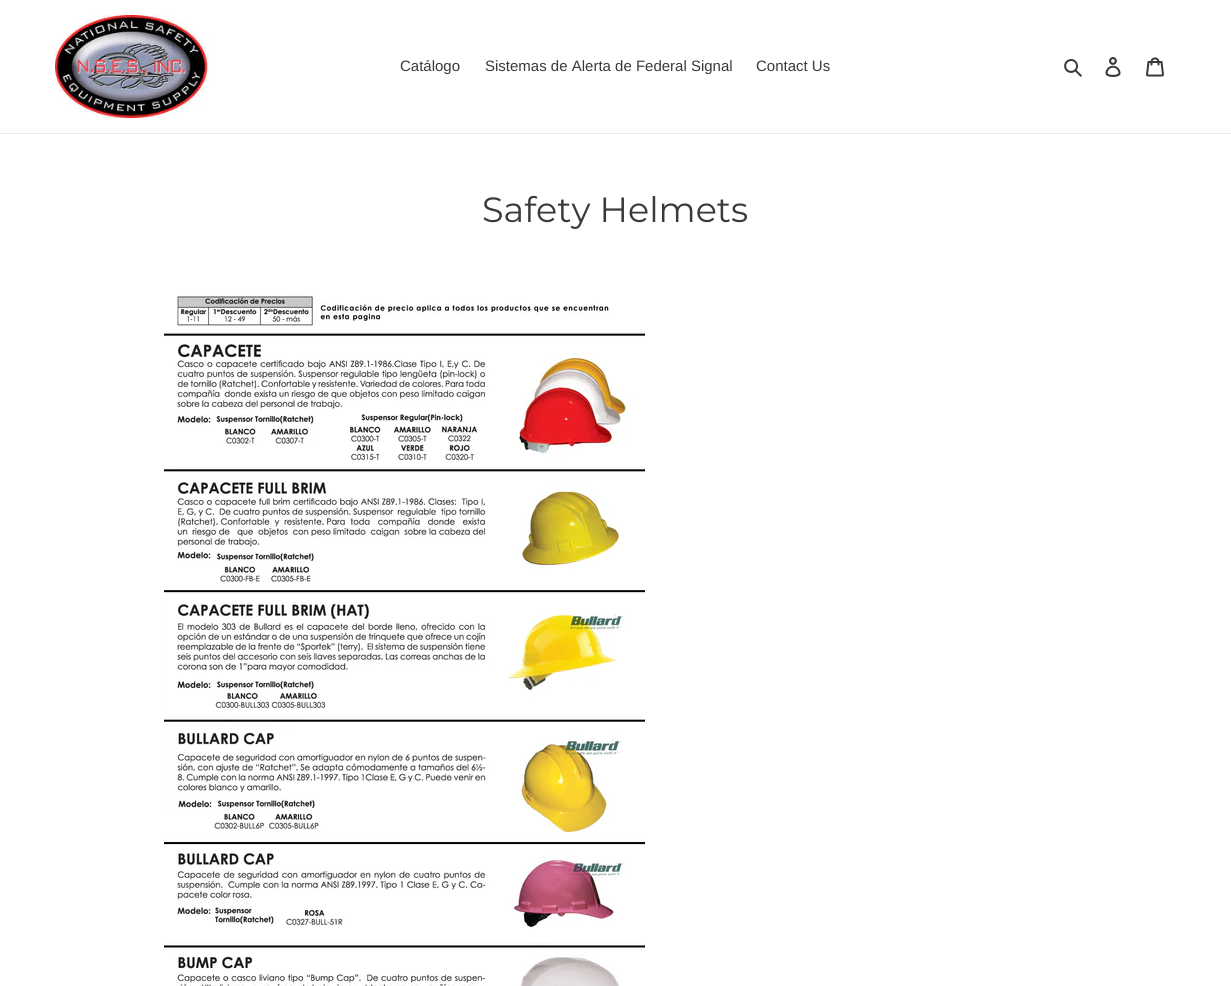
import math
import cairo

surface = cairo.ImageSurface(cairo.FORMAT_RGB24, 1231, 986)
c = cairo.Context(surface)
options = cairo.FontOptions()
options.set_hint_metrics(cairo.HINT_METRICS_OFF)
options.set_hint_style(cairo.HINT_STYLE_NONE)
c.set_font_options(options)
c.set_miter_limit(4)
def C(code):
 c.set_source_rgb(*(v / 255 for v in bytes.fromhex(code[-6:])))
def F(family, size, italic, bold):
 c.select_font_face(family, cairo.FONT_SLANT_ITALIC if italic else cairo.FONT_SLANT_NORMAL, cairo.FONT_WEIGHT_BOLD if bold else cairo.FONT_WEIGHT_NORMAL)
 c.set_font_size(size)
def T(x, y, s):
 c.move_to(x, y)
 c.show_text(s)
def R(x, y, w, h):
 c.rectangle(x, y, w, h)
 c.fill()
def I(path, x, y, w, h):
 c.save()
 c.set_source_surface(cairo.ImageSurface.create_from_png(path), x, y)
 c.rectangle(x, y, w, h)
 c.fill()
 c.restore()
C('ffffff')
c.paint()
C('ebebeb')
R(0,133,1231,1)
I('1.png',55,15,155,103)
F('Liberation Sans',15,0,0)
C('3a3a3a')
T(400,71,'Catálogo')
T(485,71,'Sistemas de Alerta de Federal Signal')
T(756,71,'Contact Us')
I('2.png',1064,59,18,18)
I('3.png',1105,57,16,20)
I('4.png',1146,57,18,20)
F('Montserrat',35,0,0)
T(482,222,'Safety Helmets')
I('5.png',164,294,481,692)
surface.write_to_png('o.png')
